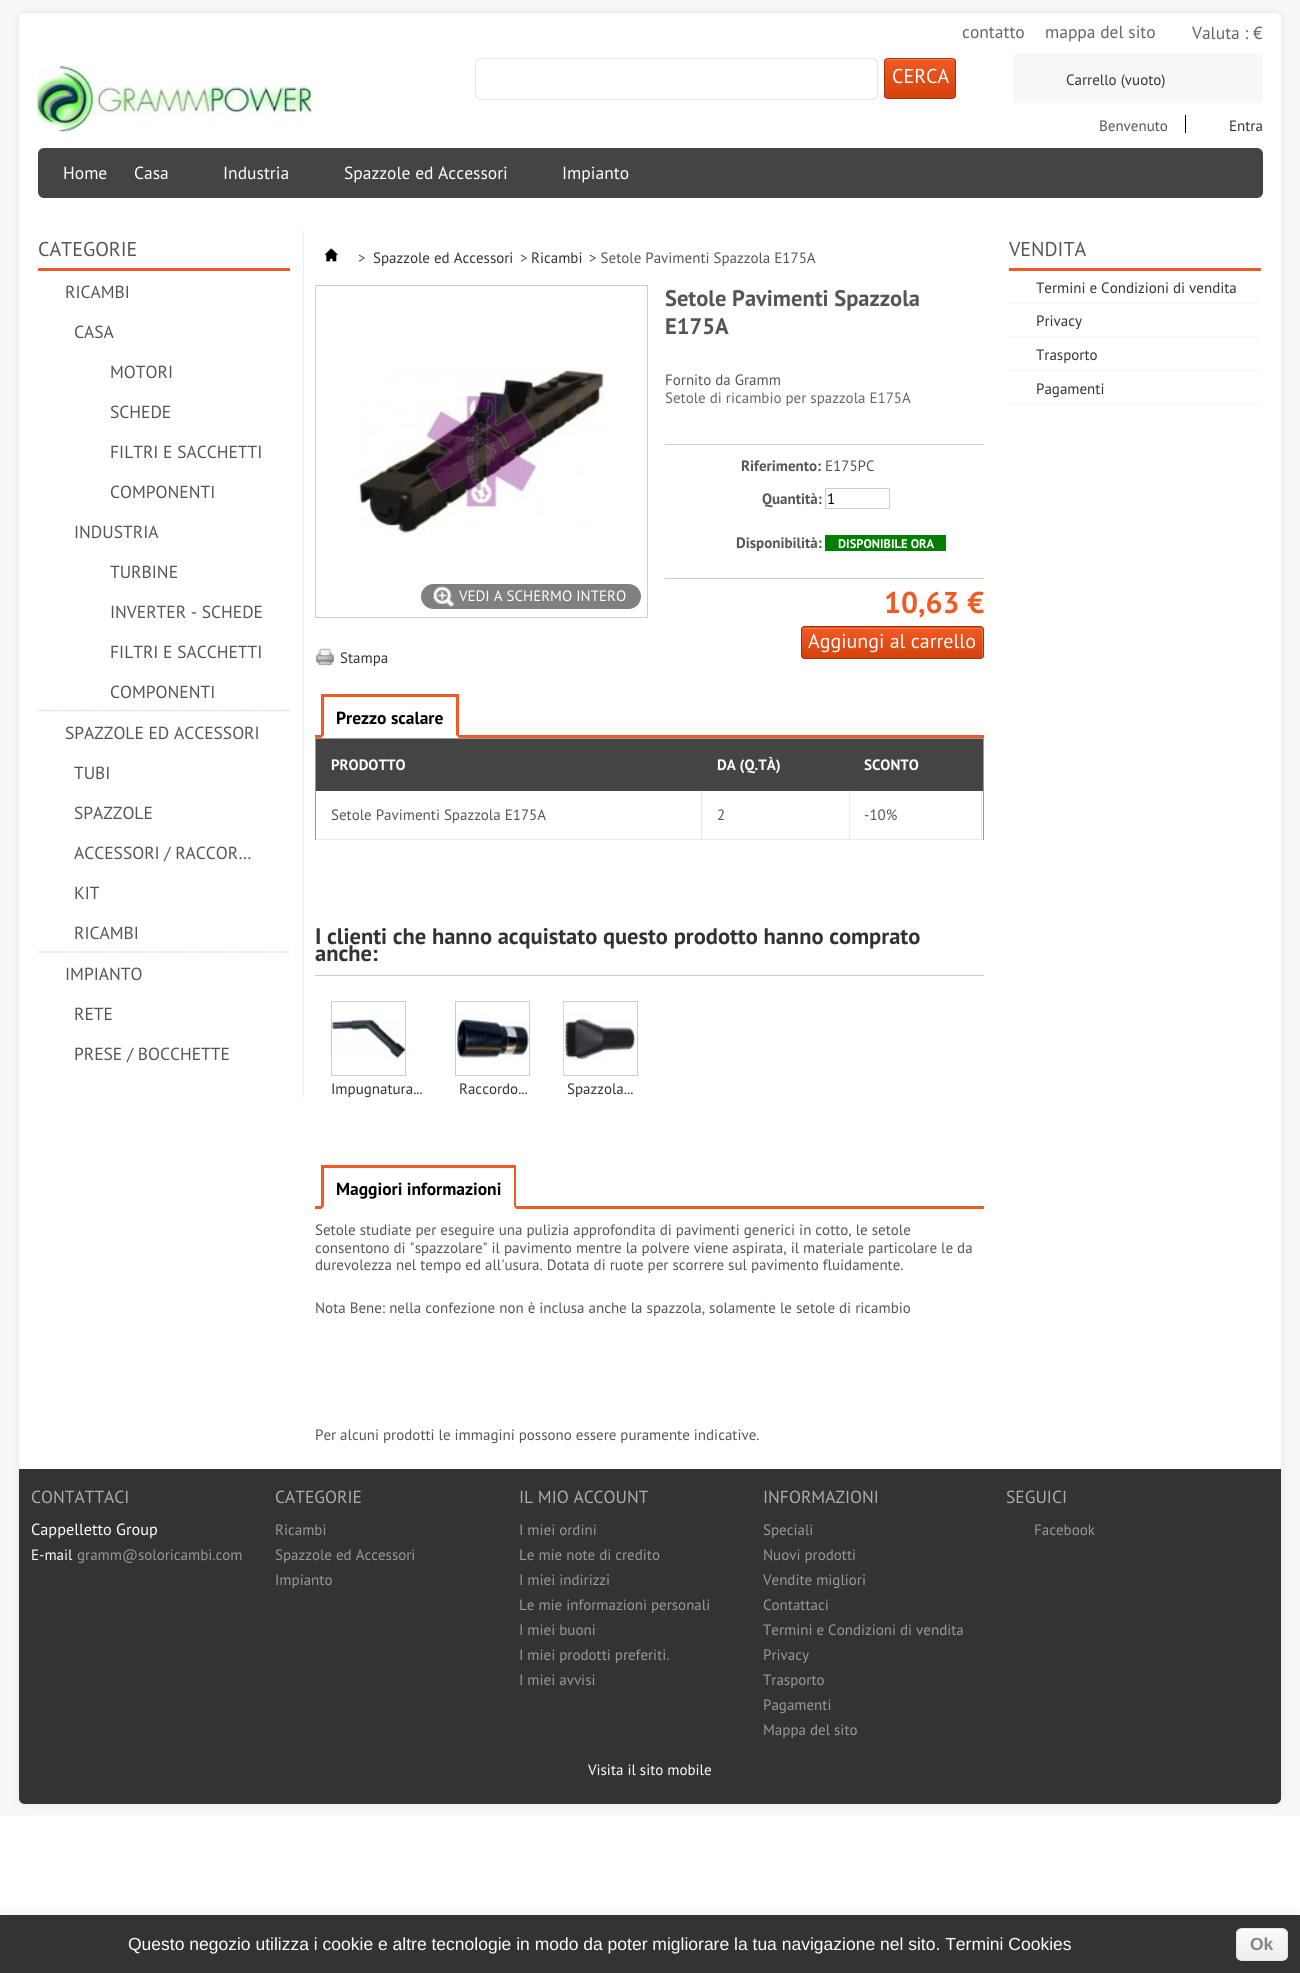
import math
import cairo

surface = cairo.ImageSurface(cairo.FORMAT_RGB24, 1300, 1973)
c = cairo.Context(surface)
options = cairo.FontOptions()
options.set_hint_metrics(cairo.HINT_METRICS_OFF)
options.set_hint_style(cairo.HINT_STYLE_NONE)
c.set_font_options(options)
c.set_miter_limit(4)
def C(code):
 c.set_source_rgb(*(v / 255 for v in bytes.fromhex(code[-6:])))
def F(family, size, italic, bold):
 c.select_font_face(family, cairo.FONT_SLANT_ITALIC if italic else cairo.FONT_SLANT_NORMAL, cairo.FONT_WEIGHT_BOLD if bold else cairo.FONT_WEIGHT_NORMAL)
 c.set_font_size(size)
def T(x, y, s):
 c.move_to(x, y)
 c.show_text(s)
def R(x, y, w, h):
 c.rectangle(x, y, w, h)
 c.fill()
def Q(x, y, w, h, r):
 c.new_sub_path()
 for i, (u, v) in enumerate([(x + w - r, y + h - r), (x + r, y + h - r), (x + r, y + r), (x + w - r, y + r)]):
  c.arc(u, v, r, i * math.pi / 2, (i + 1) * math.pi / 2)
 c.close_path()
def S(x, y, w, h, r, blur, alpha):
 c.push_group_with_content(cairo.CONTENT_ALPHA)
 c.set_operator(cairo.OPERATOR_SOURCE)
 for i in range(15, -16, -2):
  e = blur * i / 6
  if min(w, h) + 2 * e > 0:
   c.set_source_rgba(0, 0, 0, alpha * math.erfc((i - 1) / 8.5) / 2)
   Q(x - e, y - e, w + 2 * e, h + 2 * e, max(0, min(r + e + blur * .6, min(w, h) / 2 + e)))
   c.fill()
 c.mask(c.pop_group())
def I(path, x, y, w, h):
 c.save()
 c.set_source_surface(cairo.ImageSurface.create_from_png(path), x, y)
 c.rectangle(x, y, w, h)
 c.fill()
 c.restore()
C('ffffff')
c.paint()
C('f8f8fa')
R(0,0,1300,1816)
C('000000')
S(19,13,1262,1791,6,5,.08)
C('ffffff')
Q(19,13,1262,1791,6)
c.fill()
F('PT Sans',17.5,0,0)
C('666666')
T(962,38,'contatto')
T(1045,38,'mappa del sito')
T(1192,39,'Valuta : €')
Q(475.5,58.5,402,41,5.5)
C('e4e4e4')
c.set_line_width(1)
c.stroke()
c.save()
Q(884,58,72,41,4)
c.clip()
gradient = cairo.LinearGradient(920,59,920,98)
gradient.add_color_stop_rgba(0,0.945,0.353,0.137,1)
gradient.add_color_stop_rgba(1,0.831,0.259,0.051,1)
c.set_source(gradient)
R(884,59,72,39)
c.restore()
c.set_source_rgba(1,1,1,0.2)
c.new_path()
c.move_to(888,60)
c.line_to(952,60)
c.curve_to(954,60,955,61,955,62)
c.curve_to(955,56,943,59,942,59)
c.line_to(898,59)
c.curve_to(897,59,885,56,885,62)
c.curve_to(885,61,886,60,888,60)
c.close_path()
c.fill()
Q(884.5,58.5,71,40,3.5)
C('a4330a')
c.stroke()
F('PT Sans',20,0,0)
C('ffffff')
T(892,83,'CERCA')
C('f8f8fa')
Q(1013,53,250,50,4)
c.fill()
F('PT Sans',15,0,0)
C('333333')
T(1066,85,'Carrello (vuoto)')
C('555555')
T(1099,131,'Benvenuto')
C('000000')
R(1185,115,1,18)
C('333333')
T(1229,131,'Entra')
C('444444')
Q(38,148,1225,50,6)
c.fill()
F('PT Sans',17.5,0,0)
C('ffffff')
T(63,179,'Home')
T(134,179,'Casa')
T(223,179,'Industria')
T(344,179,'Spazzole ed Accessori')
T(562,179,'Impianto')
I('1.png',37,66,275,66)
C('eeeeee')
R(303,230,1,868)
C('f15a23')
R(38,268,252,3)
F('PT Sans',20,0,0)
C('555555')
T(38,256,'CATEGORIE')
c.new_path()
c.move_to(37.5,710.5)
c.line_to(290,710.5)
C('cccccc')
c.set_line_width(1.2)
c.set_dash([1.25,1.25])
c.stroke()
F('PT Sans',17.5,0,0)
C('555555')
T(65,298,'RICAMBI')
T(74,338,'CASA')
T(110,378,'MOTORI')
T(110,418,'SCHEDE')
T(110,458,'FILTRI E SACCHETTI')
T(110,498,'COMPONENTI')
T(74,538,'INDUSTRIA')
T(110,578,'TURBINE')
T(110,618,'INVERTER - SCHEDE')
T(110,658,'FILTRI E SACCHETTI')
T(110,698,'COMPONENTI')
c.new_path()
c.move_to(37.5,952)
c.line_to(290,952)
C('cccccc')
c.stroke()
C('555555')
T(65,739,'SPAZZOLE ED ACCESSORI')
T(74,779,'TUBI')
T(74,819,'SPAZZOLE')
T(74,859,'ACCESSORI / RACCOR…')
T(74,899,'KIT')
T(74,939,'RICAMBI')
T(65,980,'IMPIANTO')
T(74,1020,'RETE')
T(74,1060,'PRESE / BOCCHETTE')
I('2.png',324,248,14,14)
F('PT Sans',15,0,0)
T(358,263,'>')
C('333333')
T(373,263,'Spazzole ed Accessori')
C('555555')
T(520,263,'>')
C('333333')
T(531,263,'Ricambi')
C('555555')
T(589,263,'> Setole Pavimenti Spazzola E175A')
c.rectangle(315.5,285.5,332,332)
C('cdcdcd')
c.set_line_width(1)
c.set_dash([])
c.stroke()
I('3.png',356,367,250,169)
C('808080')
Q(421,584,220,25,12.5)
c.fill()
I('4.png',433,586,21,21)
C('ffffff')
T(459,601,'VEDI A SCHERMO INTERO')
I('5.png',316,648,18,18)
C('333333')
T(340,663,'Stampa')
F('PT Sans',22.5,0,1)
C('555555')
T(665,306,'Setole Pavimenti Spazzola')
T(665,334,'E175A')
F('PT Sans',15,0,0)
T(665,385,'Fornito da Gramm')
C('666666')
T(665,403,'Setole di ricambio per spazzola E175A')
C('cccccc')
R(665,444,319,1)
F('PT Sans',15,0,1)
C('555555')
T(741,471,'Riferimento:')
F('PT Sans',15,0,0)
T(825,471,'E175PC')
F('PT Sans',15,0,1)
T(762,504,'Quantità:')
c.rectangle(825.5,488.5,64,20)
C('cdcdcd')
c.stroke()
F('PT Sans',15,0,0)
C('000000')
T(827,504,'1')
F('PT Sans',15,0,1)
C('555555')
T(736,548,'Disponibilità:')
C('008000')
R(825,535,121,16)
F('PT Sans',12.5,0,1)
C('ffffff')
T(838,548,'DISPONIBILE ORA')
C('cccccc')
R(665,578,319,1)
F('PT Sans',30,0,1)
C('f15a23')
T(884,613,'10,63 €')
C('e5511a')
Q(801,626,183,33,4)
c.fill()
c.save()
Q(801,626,183,33,4)
c.clip()
gradient = cairo.LinearGradient(893,628,893,658)
gradient.add_color_stop_rgba(0,0.945,0.353,0.137,1)
gradient.add_color_stop_rgba(1,0.831,0.259,0.051,1)
c.set_source(gradient)
R(801,628,183,30)
c.restore()
c.set_source_rgba(1,1,1,0.2)
c.new_path()
c.move_to(805,629)
c.line_to(980,629)
c.curve_to(981,629,982,630,982,631)
c.line_to(982,658)
c.curve_to(982,657,983,656,983,656)
c.line_to(983,630)
c.curve_to(983,629,982,628,980,628)
c.line_to(806,628)
c.curve_to(804,628,804,629,803,630)
c.close_path()
c.fill()
Q(801.5,626.5,182,32,3.5)
C('a4330a')
c.stroke()
F('PT Sans',20,0,0)
C('ffffff')
T(808,648,'Aggiungi al carrello')
C('f15a23')
R(315,735,669,3)
R(321,694,138,3)
c.new_path()
c.move_to(459,694)
c.line_to(459,738)
c.line_to(456,735)
c.line_to(456,696)
c.close_path()
c.fill()
C('ffffff')
c.new_path()
c.move_to(459,738)
c.line_to(321,738)
c.line_to(324,735)
c.line_to(456,735)
c.close_path()
c.fill()
C('f15a23')
c.new_path()
c.move_to(321,738)
c.line_to(321,694)
c.line_to(324,696)
c.line_to(324,735)
c.close_path()
c.fill()
F('PT Sans',17.5,0,1)
C('000000')
T(336,724,'Prezzo scalare')
C('999999')
R(315,738,669,1)
R(983,738,1,102)
R(315,738,1,102)
C('444444')
R(316,739,667,52)
F('PT Sans',15,0,1)
C('ffffff')
T(331,770,'PRODOTTO')
T(717,770,'DA (Q.TÀ)')
T(864,770,'SCONTO')
C('e9e9e9')
R(701,791,1,49)
R(316,839,387,1)
F('PT Sans',15,0,0)
C('555555')
T(331,820,'Setole Pavimenti Spazzola E175A')
C('e9e9e9')
R(849,791,1,49)
R(703,839,147,1)
C('555555')
T(717,820,'2')
C('e9e9e9')
R(981,791,1,49)
R(850,839,133,1)
C('555555')
T(864,820,'-10%')
C('cccccc')
R(315,975,669,1)
F('PT Sans',22.5,0,1)
C('333333')
T(315,944,'I clienti che hanno acquistato questo prodotto hanno comprato')
T(315,961,'anche:')
c.rectangle(331.5,1001.5,74,74)
C('cccccc')
c.stroke()
I('6.png',332,1014,73,48)
F('PT Sans',15,0,0)
C('333333')
T(331,1094,'Impugnatura...')
c.rectangle(455.5,1001.5,74,74)
C('cccccc')
c.stroke()
I('7.png',456,1013,73,49)
C('333333')
T(459,1094,'Raccordo...')
c.rectangle(563.5,1001.5,74,74)
C('cccccc')
c.stroke()
I('8.png',563,1002,73,73)
C('333333')
T(567,1094,'Spazzola...')
C('f15a23')
R(315,1206,669,3)
R(321,1165,195,3)
c.new_path()
c.move_to(516,1165)
c.line_to(516,1209)
c.line_to(514,1206)
c.line_to(514,1168)
c.close_path()
c.fill()
C('ffffff')
c.new_path()
c.move_to(516,1209)
c.line_to(321,1209)
c.line_to(324,1206)
c.line_to(514,1206)
c.close_path()
c.fill()
C('f15a23')
c.new_path()
c.move_to(321,1209)
c.line_to(321,1165)
c.line_to(324,1168)
c.line_to(324,1206)
c.close_path()
c.fill()
F('PT Sans',17.5,0,1)
C('000000')
T(336,1195,'Maggiori informazioni')
F('PT Sans',15,0,0)
C('555555')
T(315,1235,'Setole studiate per eseguire una pulizia approfondita di pavimenti generici in cotto, le setole')
T(315,1253,'consentono di "spazzolare" il pavimento mentre la polvere viene aspirata, il materiale particolare le da')
T(315,1270,'durevolezza nel tempo ed all\'usura. Dotata di ruote per scorrere sul pavimento fluidamente.')
T(315,1313,'Nota Bene: nella confezione non è inclusa anche la spazzola, solamente le setole di ricambio')
T(315,1440,'Per alcuni prodotti le immagini possono essere puramente indicative.')
C('f15a23')
R(1009,268,252,3)
F('PT Sans',20,0,0)
C('555555')
T(1009,256,'VENDITA')
c.new_path()
c.move_to(1009,303)
c.line_to(1261,303)
C('eeeeee')
c.set_line_width(1.2)
c.set_dash([1.25,1.25])
c.stroke()
F('PT Sans',15,0,0)
C('333333')
T(1036,293,'Termini e Condizioni di vendita')
c.new_path()
c.move_to(1009,337)
c.line_to(1261,337)
C('eeeeee')
c.stroke()
C('333333')
T(1036,326,'Privacy')
c.new_path()
c.move_to(1009,370.5)
c.line_to(1261,370.5)
C('eeeeee')
c.stroke()
C('333333')
T(1036,360,'Trasporto')
c.new_path()
c.move_to(1009,404.5)
c.line_to(1261,404.5)
C('eeeeee')
c.stroke()
C('333333')
T(1036,394,'Pagamenti')
c.new_path()
c.move_to(19,1469)
c.line_to(1281,1469)
c.line_to(1281,1798)
c.curve_to(1281,1801.5,1278.5,1804,1275,1804)
c.line_to(25,1804)
c.curve_to(21.5,1804,19,1801.5,19,1798)
c.close_path()
c.fill()
F('PT Sans',17.5,0,0)
C('acacac')
T(31,1503,'CONTATTACI')
F('PT Sans',16.25,0,0)
C('ffffff')
T(31,1535,'Cappelletto Group')
F('PT Sans',15,0,0)
T(31,1560,'E-mail')
C('999999')
T(77,1560,'gramm@soloricambi.com')
F('PT Sans',17.5,0,0)
C('acacac')
T(275,1503,'CATEGORIE')
F('PT Sans',15,0,0)
C('999999')
T(275,1535,'Ricambi')
T(275,1560,'Spazzole ed Accessori')
T(275,1585,'Impianto')
F('PT Sans',17.5,0,0)
C('acacac')
T(519,1503,'IL MIO ACCOUNT')
F('PT Sans',15,0,0)
C('999999')
T(519,1535,'I miei ordini')
T(519,1560,'Le mie note di credito')
T(519,1585,'I miei indirizzi')
T(519,1610,'Le mie informazioni personali')
T(519,1635,'I miei buoni')
T(519,1660,'I miei prodotti preferiti.')
T(519,1685,'I miei avvisi')
F('PT Sans',17.5,0,0)
C('acacac')
T(763,1503,'INFORMAZIONI')
F('PT Sans',15,0,0)
C('999999')
T(763,1535,'Speciali')
T(763,1560,'Nuovi prodotti')
T(763,1585,'Vendite migliori')
T(763,1610,'Contattaci')
T(763,1635,'Termini e Condizioni di vendita')
T(763,1660,'Privacy')
T(763,1685,'Trasporto')
T(763,1710,'Pagamenti')
T(763,1735,'Mappa del sito')
F('PT Sans',17.5,0,0)
C('acacac')
T(1006,1503,'SEGUICI')
F('PT Sans',15,0,0)
C('999999')
T(1034,1535,'Facebook')
C('ffffff')
T(588,1775,'Visita il sito mobile')
C('ebebeb')
S(0,1915,1300,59,0,6,1)
C('333333')
R(0,1915,1300,58)
F('Liberation Sans',17.5,0,0)
C('ffffff')
T(128,1950,'Questo negozio utilizza i cookie e altre tecnologie in modo da poter migliorare la tua navigazione nel sito. Termini Cookies')
c.save()
Q(1236,1928,52,33,6)
c.clip()
gradient = cairo.LinearGradient(1238,1929,1238,1960)
gradient.add_color_stop_rgba(.05,0.98,0.98,0.98,1)
gradient.add_color_stop_rgba(1,0.929,0.929,0.929,1)
c.set_source(gradient)
R(1236,1929,52,31)
c.restore()
c.new_path()
c.move_to(1242,1930)
c.line_to(1281,1930)
c.curve_to(1284,1930,1286,1932,1286,1935)
c.curve_to(1286,1928,1280,1929,1275,1929)
c.line_to(1249,1929)
c.curve_to(1244,1929,1238,1928,1238,1935)
c.curve_to(1238,1932,1240,1930,1242,1930)
c.close_path()
c.fill()
Q(1236.5,1928.5,51,32,5.5)
C('e3e3e3')
c.set_line_width(1)
c.set_dash([])
c.stroke()
F('Liberation Sans',17.5,0,1)
C('858585')
T(1250,1950,'Ok')
surface.write_to_png('o.png')
